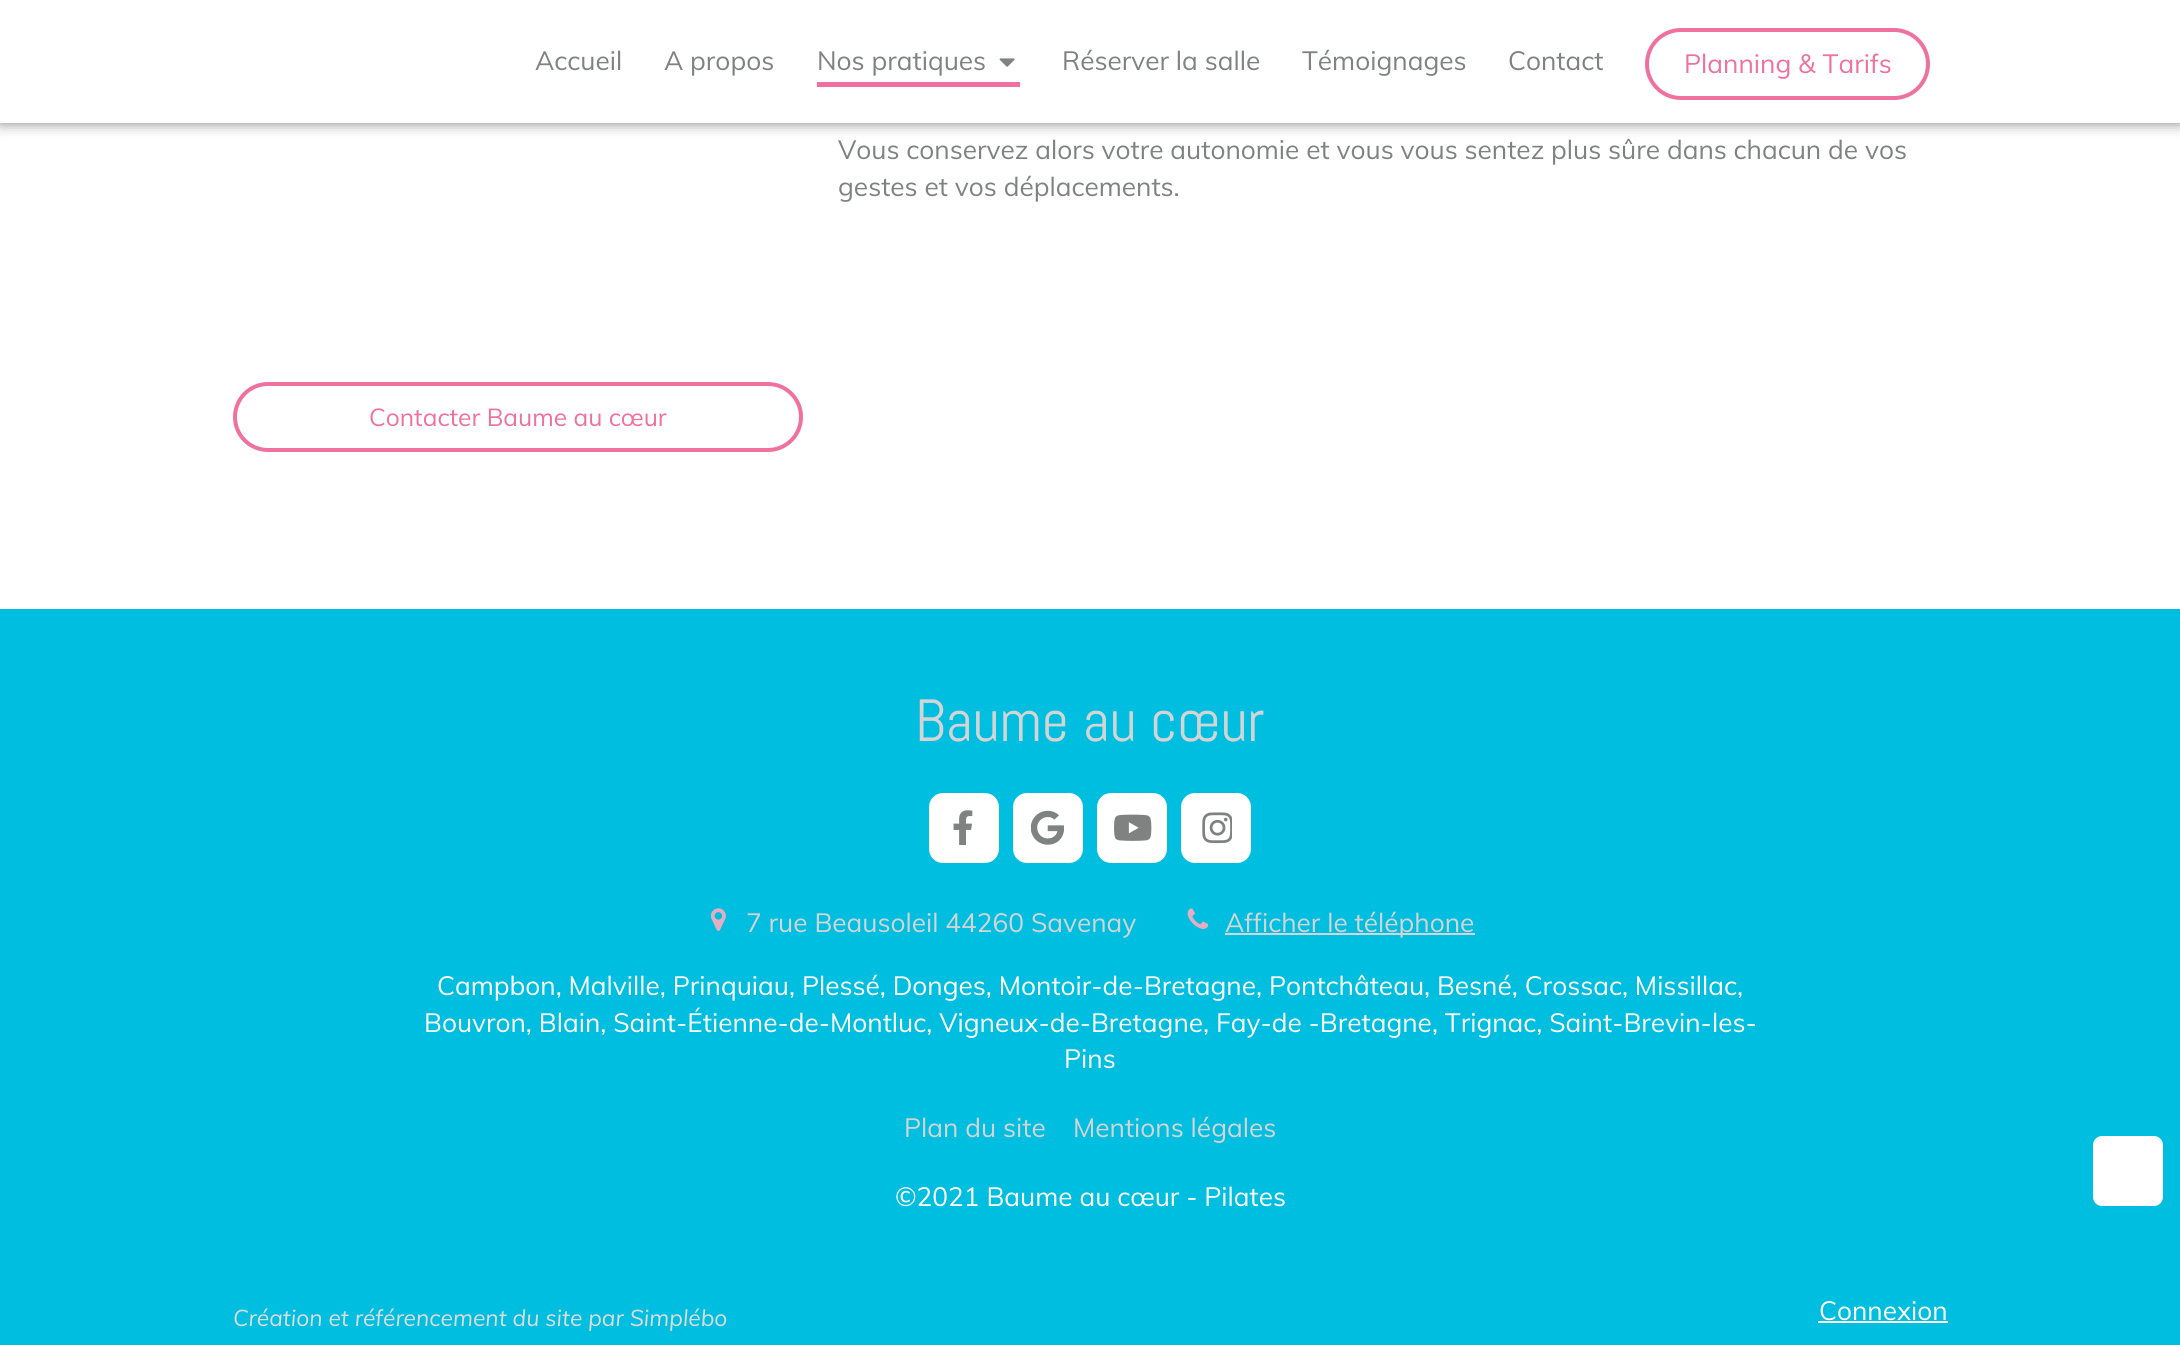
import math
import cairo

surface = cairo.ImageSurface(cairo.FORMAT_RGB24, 2180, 1345)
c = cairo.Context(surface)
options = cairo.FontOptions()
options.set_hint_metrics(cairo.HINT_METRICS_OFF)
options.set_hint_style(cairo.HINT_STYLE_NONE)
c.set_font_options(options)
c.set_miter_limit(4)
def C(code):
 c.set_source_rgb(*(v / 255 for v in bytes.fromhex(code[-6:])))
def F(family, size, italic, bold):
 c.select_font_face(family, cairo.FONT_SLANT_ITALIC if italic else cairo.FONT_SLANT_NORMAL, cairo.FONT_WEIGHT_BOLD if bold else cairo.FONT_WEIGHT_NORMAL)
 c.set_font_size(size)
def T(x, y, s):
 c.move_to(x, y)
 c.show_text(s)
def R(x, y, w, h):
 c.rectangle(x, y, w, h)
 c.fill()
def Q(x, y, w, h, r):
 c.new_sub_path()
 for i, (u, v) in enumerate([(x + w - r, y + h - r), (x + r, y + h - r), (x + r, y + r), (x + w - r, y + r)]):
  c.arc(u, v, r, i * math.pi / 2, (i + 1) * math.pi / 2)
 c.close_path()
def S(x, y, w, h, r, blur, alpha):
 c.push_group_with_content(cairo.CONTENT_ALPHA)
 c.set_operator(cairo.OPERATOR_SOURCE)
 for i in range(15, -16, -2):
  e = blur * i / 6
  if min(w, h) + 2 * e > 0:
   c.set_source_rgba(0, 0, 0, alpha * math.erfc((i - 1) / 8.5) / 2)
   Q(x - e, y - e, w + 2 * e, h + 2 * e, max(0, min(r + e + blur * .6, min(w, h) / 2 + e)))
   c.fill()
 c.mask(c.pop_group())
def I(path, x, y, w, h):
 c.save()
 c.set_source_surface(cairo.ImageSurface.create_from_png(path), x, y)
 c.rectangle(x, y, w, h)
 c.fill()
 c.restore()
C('ffffff')
c.paint()
C('000000')
S(0,0,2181,123,0,7,.5)
C('ffffff')
R(0,0,2180,123)
F('Muli',26.25,0,0)
C('808282')
T(535,70,'Accueil')
T(664,70,'A propos')
C('f0719d')
R(817,82,203,5)
C('808282')
T(817,70,'Nos pratiques')
I('1.png',999,58,16,9)
T(1062,70,'Réserver la salle')
T(1302,70,'Témoignages')
T(1508,70,'Contact')
Q(1647,30,281,68,34)
C('f0719d')
c.set_line_width(4)
c.stroke()
T(1684,73,'Planning & Tarifs')
C('808282')
T(838,159,'Vous conservez alors votre autonomie et vous vous sentez plus sûre dans chacun de vos')
T(838,196,'gestes et vos déplacements.')
Q(235,384,566,66,33)
C('f0719d')
c.stroke()
F('Muli',24.5,0,0)
T(369,426,'Contacter Baume au cœur')
C('00bedf')
R(0,609,2180,736)
F('Abel',59.5,0,0)
C('d4d4d4')
T(915,741,'Baume au cœur')
C('ffffff')
Q(929,793,70,70,14)
c.fill()
I('2.png',953,810,20,35)
Q(1013,793,70,70,14)
c.fill()
I('3.png',1031,810,33,35)
Q(1097,793,70,70,14)
c.fill()
I('4.png',1114,814,38,27)
Q(1181,793,70,70,14)
c.fill()
I('5.png',1202,812,30,32)
I('6.png',710,908,16,23)
F('Muli',26.25,0,0)
C('d4d4d4')
T(746,932,'7 rue Beausoleil 44260 Savenay')
I('7.png',1187,908,22,21)
R(1225,933,250,2)
T(1225,932,'Afficher le téléphone')
C('ffffff')
T(437,995,'Campbon, Malville, Prinquiau, Plessé, Donges, Montoir-de-Bretagne, Pontchâteau, Besné, Crossac, Missillac,')
T(424,1032,'Bouvron, Blain, Saint-Étienne-de-Montluc, Vigneux-de-Bretagne, Fay-de -Bretagne, Trignac, Saint-Brevin-les-')
T(1064,1068,'Pins')
C('d4d4d4')
T(904,1137,'Plan du site')
T(1073,1137,'Mentions légales')
C('ffffff')
T(895,1206,'©2021 Baume au cœur - Pilates')
F('Muli',22.75,1,0)
C('dcdcdc')
T(233,1326,'Création et référencement du site par Simplébo')
F('Muli',26.25,0,0)
C('ffffff')
T(1819,1320,'Connexion')
R(1818,1321,130,2)
Q(2094,1137,68,68,8)
c.fill_preserve()
c.set_line_width(2)
c.stroke()
surface.write_to_png('o.png')
